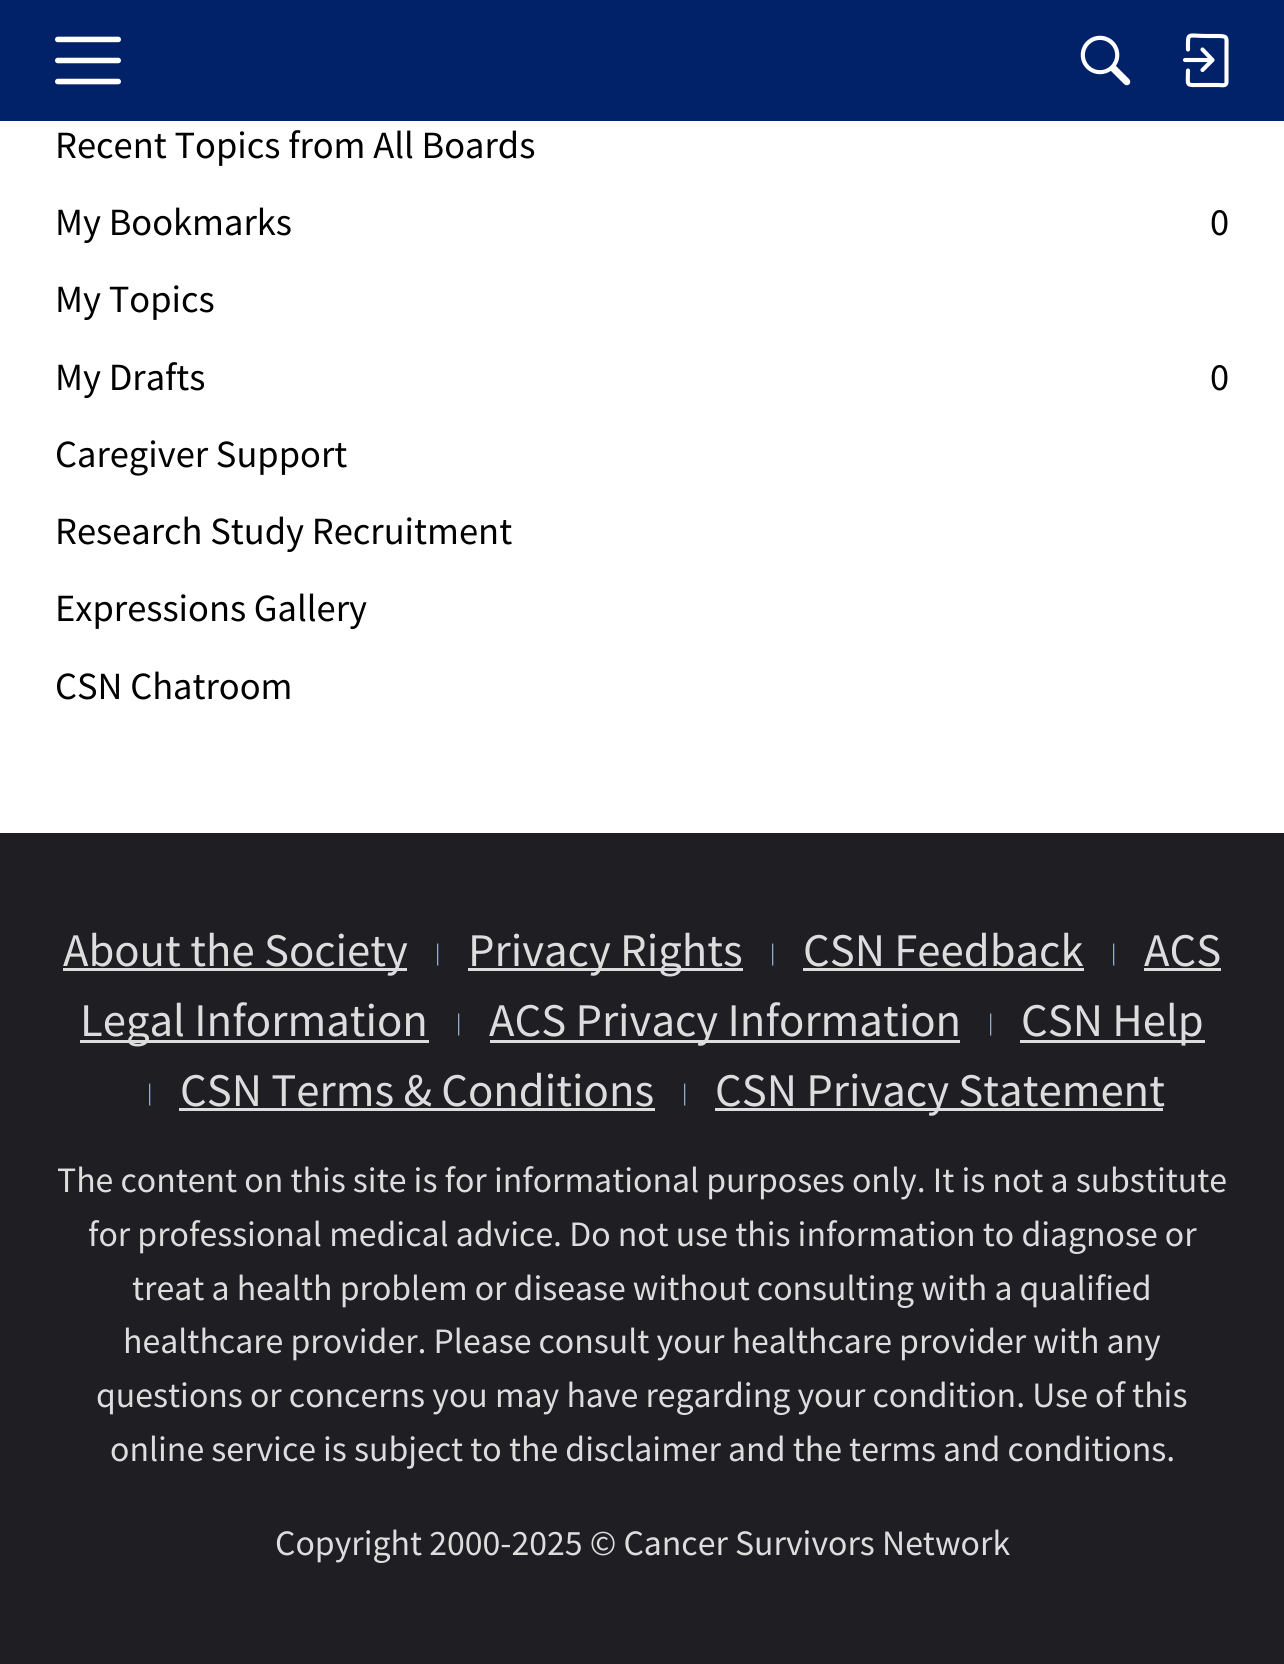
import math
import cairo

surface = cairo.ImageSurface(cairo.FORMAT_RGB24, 1284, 1664)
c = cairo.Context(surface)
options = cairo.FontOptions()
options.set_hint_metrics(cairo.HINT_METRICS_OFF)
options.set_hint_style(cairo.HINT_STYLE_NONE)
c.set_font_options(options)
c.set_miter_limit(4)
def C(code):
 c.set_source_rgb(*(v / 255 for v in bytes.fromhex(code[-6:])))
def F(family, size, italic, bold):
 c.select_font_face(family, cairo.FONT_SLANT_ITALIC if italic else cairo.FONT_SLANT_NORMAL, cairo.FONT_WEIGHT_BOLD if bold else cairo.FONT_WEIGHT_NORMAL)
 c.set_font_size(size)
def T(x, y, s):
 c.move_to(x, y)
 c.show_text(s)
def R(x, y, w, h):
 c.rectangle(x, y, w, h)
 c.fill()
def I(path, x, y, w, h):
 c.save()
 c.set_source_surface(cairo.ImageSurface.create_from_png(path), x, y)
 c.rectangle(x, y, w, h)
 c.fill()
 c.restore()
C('ffffff')
c.paint()
C('012169')
R(0,0,1284,121)
I('1.png',55,36,66,49)
I('2.png',1080,35,51,51)
c.new_path()
c.move_to(1202.5,70)
c.line_to(1212.5,60)
c.line_to(1202.5,49.5)
C('ffffff')
c.set_line_width(4.1)
c.set_line_cap(cairo.LINE_CAP_ROUND)
c.set_line_join(cairo.LINE_JOIN_ROUND)
c.stroke()
c.new_path()
c.move_to(1211.5,60)
c.line_to(1185,60)
c.set_line_join(cairo.LINE_JOIN_MITER)
c.stroke()
c.new_path()
c.move_to(1188,49.5)
c.curve_to(1188,31.5,1186.5,36,1207,36)
c.line_to(1217.5,36)
c.curve_to(1228,36,1226.5,37,1226.5,47.5)
c.line_to(1226.5,82)
c.curve_to(1226.5,86.5,1222,85,1218.5,85)
c.line_to(1202,85)
c.curve_to(1185,85,1188,87,1188,70.5)
c.set_line_join(cairo.LINE_JOIN_ROUND)
c.stroke()
F('Source Sans Pro',38.5,0,0)
C('000000')
T(55,158,'Recent Topics from All Boards')
T(55,235,'My Bookmarks')
T(1210,235,'0')
T(55,312,'My Topics')
T(55,390,'My Drafts')
T(1210,390,'0')
T(55,467,'Caregiver Support')
T(55,544,'Research Study Recruitment')
T(55,621,'Expressions Gallery')
T(55,699,'CSN Chatroom')
C('1e1e23')
R(0,833,1284,831)
C('dddddd')
R(63,968,344,3)
F('Source Sans Pro',46.75,0,0)
T(63,966,'About the Society')
F('Source Sans Pro',22,0,0)
C('97aece')
T(435,960,'|')
C('dddddd')
R(468,968,275,3)
F('Source Sans Pro',46.75,0,0)
T(468,966,'Privacy Rights')
F('Source Sans Pro',22,0,0)
C('97aece')
T(770,960,'|')
F('Source Sans Pro',46.75,0,0)
C('dddddd')
T(803,966,'CSN Feedback')
R(803,968,281,3)
F('Source Sans Pro',22,0,0)
C('97aece')
T(1111,960,'|')
F('Source Sans Pro',46.75,0,0)
C('dddddd')
T(1144,966,'ACS')
R(1144,968,77,3)
R(80,1040,349,3)
T(80,1036,'Legal Information')
F('Source Sans Pro',22,0,0)
C('97aece')
T(456,1030,'|')
C('dddddd')
R(490,1040,470,3)
F('Source Sans Pro',46.75,0,0)
T(489,1036,'ACS Privacy Information')
F('Source Sans Pro',22,0,0)
C('97aece')
T(988,1030,'|')
C('dddddd')
R(1020,1040,185,3)
F('Source Sans Pro',46.75,0,0)
T(1021,1036,'CSN Help')
F('Source Sans Pro',22,0,0)
C('97aece')
T(147,1100,'|')
F('Source Sans Pro',46.75,0,0)
C('dddddd')
T(180,1106,'CSN Terms & Conditions')
R(179,1108,476,3)
F('Source Sans Pro',22,0,0)
C('97aece')
T(682,1100,'|')
C('dddddd')
R(715,1108,448,3)
F('Source Sans Pro',46.75,0,0)
T(715,1106,'CSN Privacy Statement')
F('Source Sans Pro',35.75,0,0)
T(57,1192,'The content on this site is for informational purposes only. It is not a substitute')
T(88,1246,'for professional medical advice. Do not use this information to diagnose or')
T(132,1300,'treat a health problem or disease without consulting with a qualified')
T(123,1353,'healthcare provider. Please consult your healthcare provider with any')
T(96,1407,'questions or concerns you may have regarding your condition. Use of this')
T(110,1461,'online service is subject to the disclaimer and the terms and conditions.')
T(275,1555,'Copyright 2000-2025 © Cancer Survivors Network')
surface.write_to_png('o.png')
